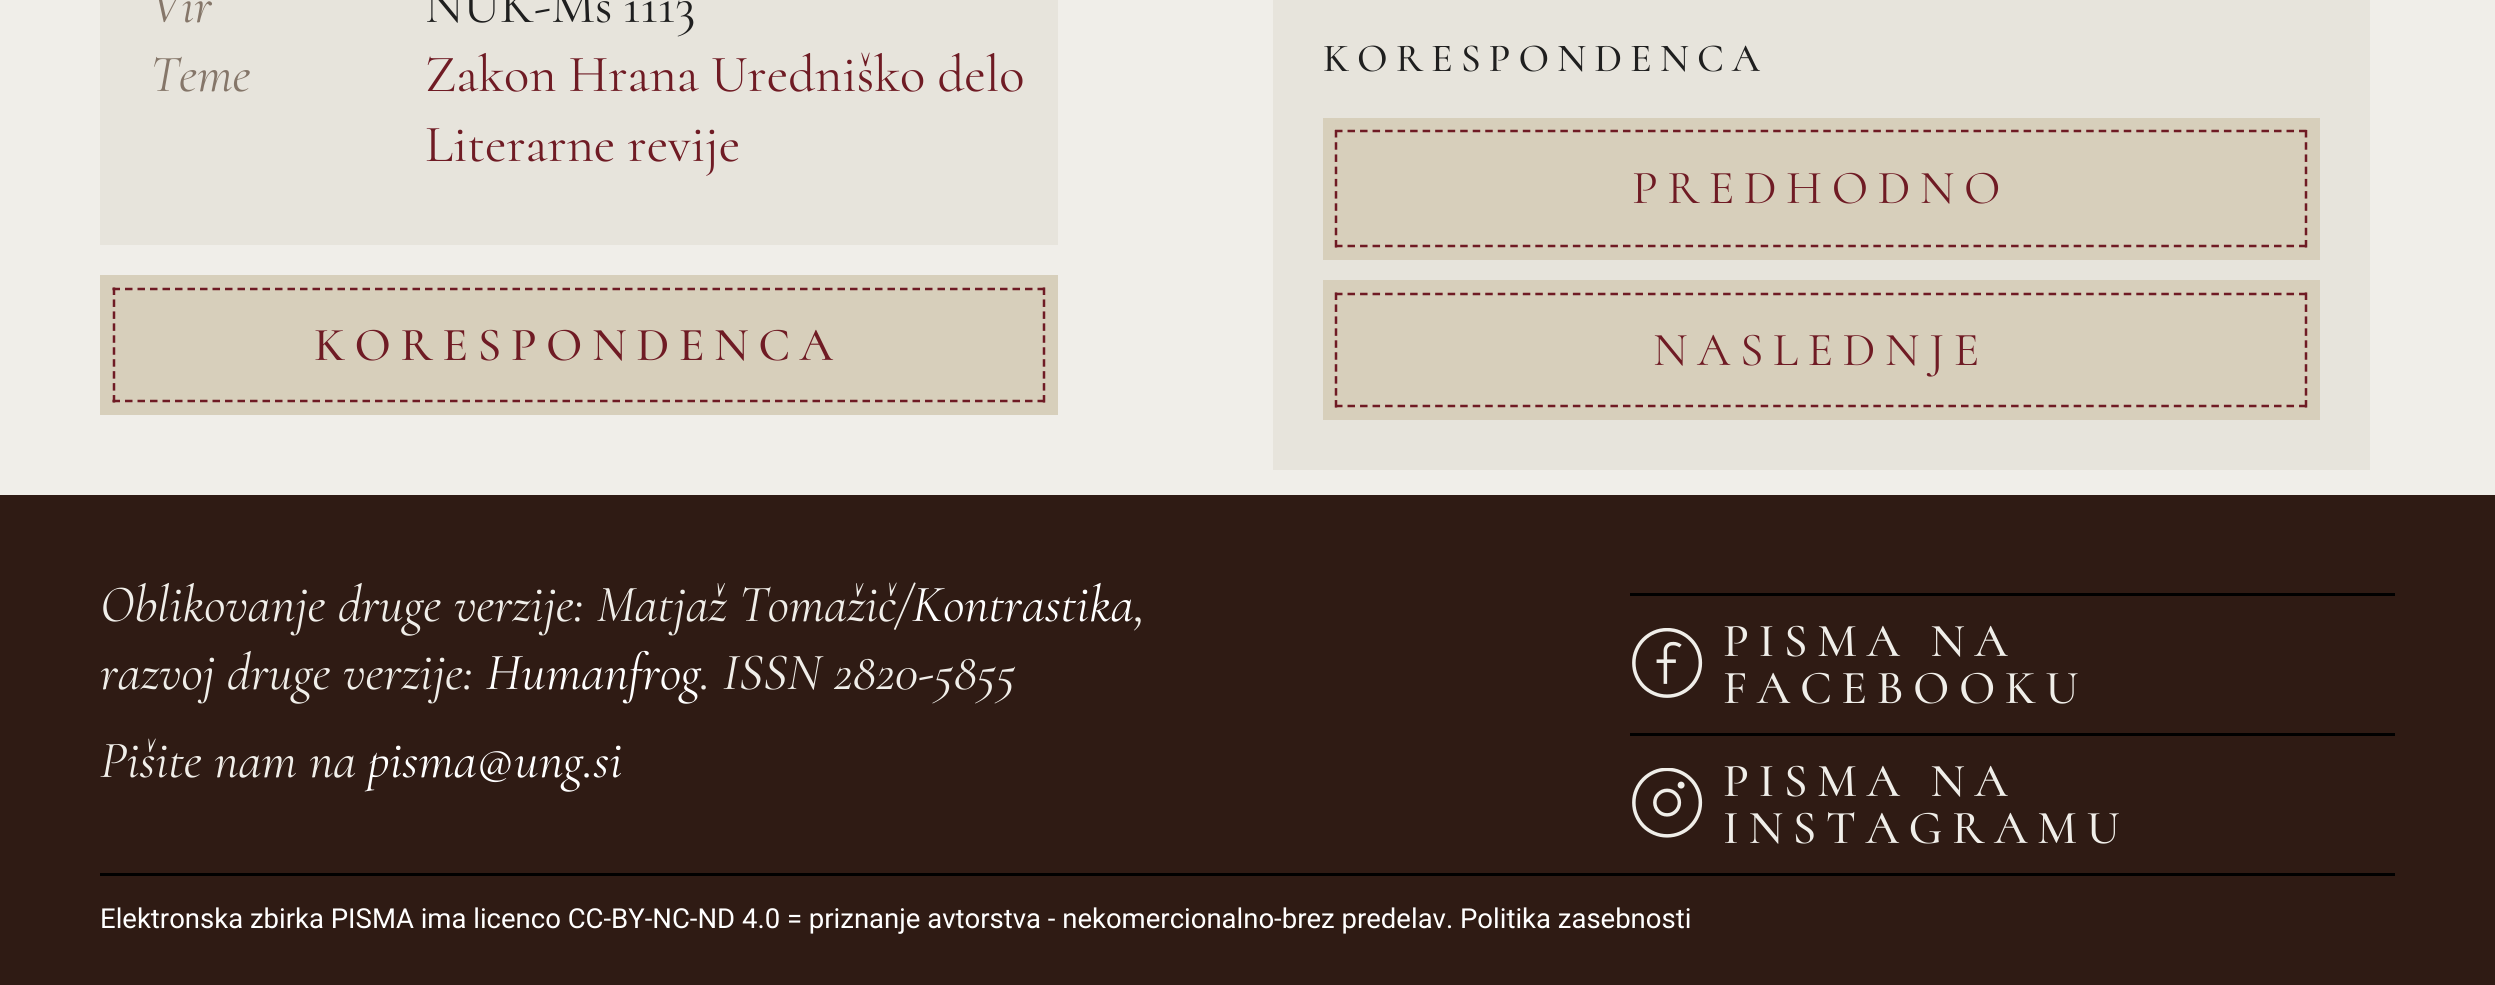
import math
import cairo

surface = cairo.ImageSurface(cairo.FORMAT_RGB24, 2495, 985)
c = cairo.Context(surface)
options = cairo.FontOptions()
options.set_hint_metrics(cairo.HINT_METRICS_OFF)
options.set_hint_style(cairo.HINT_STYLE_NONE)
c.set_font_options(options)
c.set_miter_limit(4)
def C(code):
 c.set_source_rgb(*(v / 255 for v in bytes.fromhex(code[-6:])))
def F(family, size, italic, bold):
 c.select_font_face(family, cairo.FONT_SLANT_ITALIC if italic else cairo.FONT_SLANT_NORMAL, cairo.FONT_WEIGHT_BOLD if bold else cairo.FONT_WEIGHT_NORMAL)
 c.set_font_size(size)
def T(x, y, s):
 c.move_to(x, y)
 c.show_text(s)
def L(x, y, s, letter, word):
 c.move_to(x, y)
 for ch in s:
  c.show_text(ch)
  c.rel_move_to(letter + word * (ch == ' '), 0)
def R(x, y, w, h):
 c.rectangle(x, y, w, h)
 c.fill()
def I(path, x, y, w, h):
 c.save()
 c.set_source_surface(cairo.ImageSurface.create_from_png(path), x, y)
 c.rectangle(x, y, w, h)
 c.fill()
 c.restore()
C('f0eee9')
c.paint()
C('e7e4dc')
R(100,0,958,245)
F('Cormorant Light',52.5,1,0)
C('857669')
T(150,22,'Vir')
F('Cormorant',52.5,0,0)
C('1f1f1f')
L(425,22,'NUK-Ms 1113',0,-2)
F('Cormorant Light',52.5,1,0)
C('857669')
T(150,91,'Teme')
F('Cormorant',52.5,0,0)
C('6f1b24')
T(425,91,'Zakon Hrana Uredniško delo')
T(425,161,'Literarne revije')
C('d7cfbb')
R(100,275,958,140)
c.new_path()
c.move_to(112.5,289)
c.line_to(1045,289)
C('6f1b24')
c.set_line_width(2.5)
c.set_dash([7.5,5])
c.stroke()
c.new_path()
c.move_to(1044,287.5)
c.line_to(1044,402.5)
c.set_dash([7.5,4.45])
c.stroke()
c.new_path()
c.move_to(112.5,401)
c.line_to(1045,401)
c.set_dash([7.5,5])
c.stroke()
c.new_path()
c.move_to(114,287.5)
c.line_to(114,402.5)
c.set_dash([7.5,4.45])
c.stroke()
F('Cormorant Medium',47.5,0,0)
L(314,360,'KORESPONDENCA',9.5,0)
C('e7e4dc')
R(1273,0,1097,470)
F('Cormorant Medium',40,0,0)
C('1f1f1f')
L(1323,71,'KORESPONDENCA',8,0)
C('d7cfbb')
R(1323,118,997,142)
c.new_path()
c.move_to(1335,131)
c.line_to(2307.5,131)
C('6f1b24')
c.set_dash([7.5,5.02])
c.stroke()
c.new_path()
c.move_to(2306,130)
c.line_to(2306,247.5)
c.set_dash([7.5,4.72])
c.stroke()
c.new_path()
c.move_to(1335,246)
c.line_to(2307.5,246)
c.set_dash([7.5,5.02])
c.stroke()
c.new_path()
c.move_to(1336,130)
c.line_to(1336,247.5)
c.set_dash([7.5,4.72])
c.stroke()
F('Cormorant',47.5,0,0)
L(1632,203,'PREDHODNO',9.5,0)
C('d7cfbb')
R(1323,280,997,140)
c.new_path()
c.move_to(1335,294)
c.line_to(2307.5,294)
C('6f1b24')
c.set_dash([7.5,5.02])
c.stroke()
c.new_path()
c.move_to(2306,292.5)
c.line_to(2306,407.5)
c.set_dash([7.5,4.45])
c.stroke()
c.new_path()
c.move_to(1335,406)
c.line_to(2307.5,406)
c.set_dash([7.5,5.02])
c.stroke()
c.new_path()
c.move_to(1336,292.5)
c.line_to(1336,407.5)
c.set_dash([7.5,4.45])
c.stroke()
L(1653,365,'NASLEDNJE',9.5,0)
C('2f1b14')
R(0,495,2495,490)
F('Cormorant Light',52.5,1,0)
C('f0eee9')
T(100,621,'Oblikovanje druge verzije: Matjaž Tomažič/')
C('ffffff')
T(912,621,'Kontrastika')
C('f0eee9')
T(1134,621,',')
T(100,689,'razvoj druge verzije:')
C('ffffff')
T(486,689,'Humanfrog')
C('f0eee9')
T(700,689,'. ISSN 2820-5855')
T(100,777,'Pišite nam na')
C('ffffff')
T(368,777,'pisma@ung.si')
C('000000')
R(1630,593,765,3)
I('1.png',1632,628,71,70)
F('Cormorant Medium',47.5,0,0)
C('f0eee9')
L(1723,656,'PISMA NA',9.5,0)
L(1723,703,'FACEBOOKU',9.5,0)
C('000000')
R(1630,733,765,3)
I('2.png',1632,768,71,70)
C('f0eee9')
L(1723,796,'PISMA NA',9.5,0)
L(1723,843,'INSTAGRAMU',9.5,0)
C('000000')
R(100,873,2295,3)
F('Roboto',27.5,0,0)
C('ffffff')
T(100,928,'Elektronska zbirka PISMA ima licenco CC-BY-NC-ND 4.0 = priznanje avtorstva - nekomercionalno-brez predelav. Politika zasebnosti')
surface.write_to_png('o.png')
